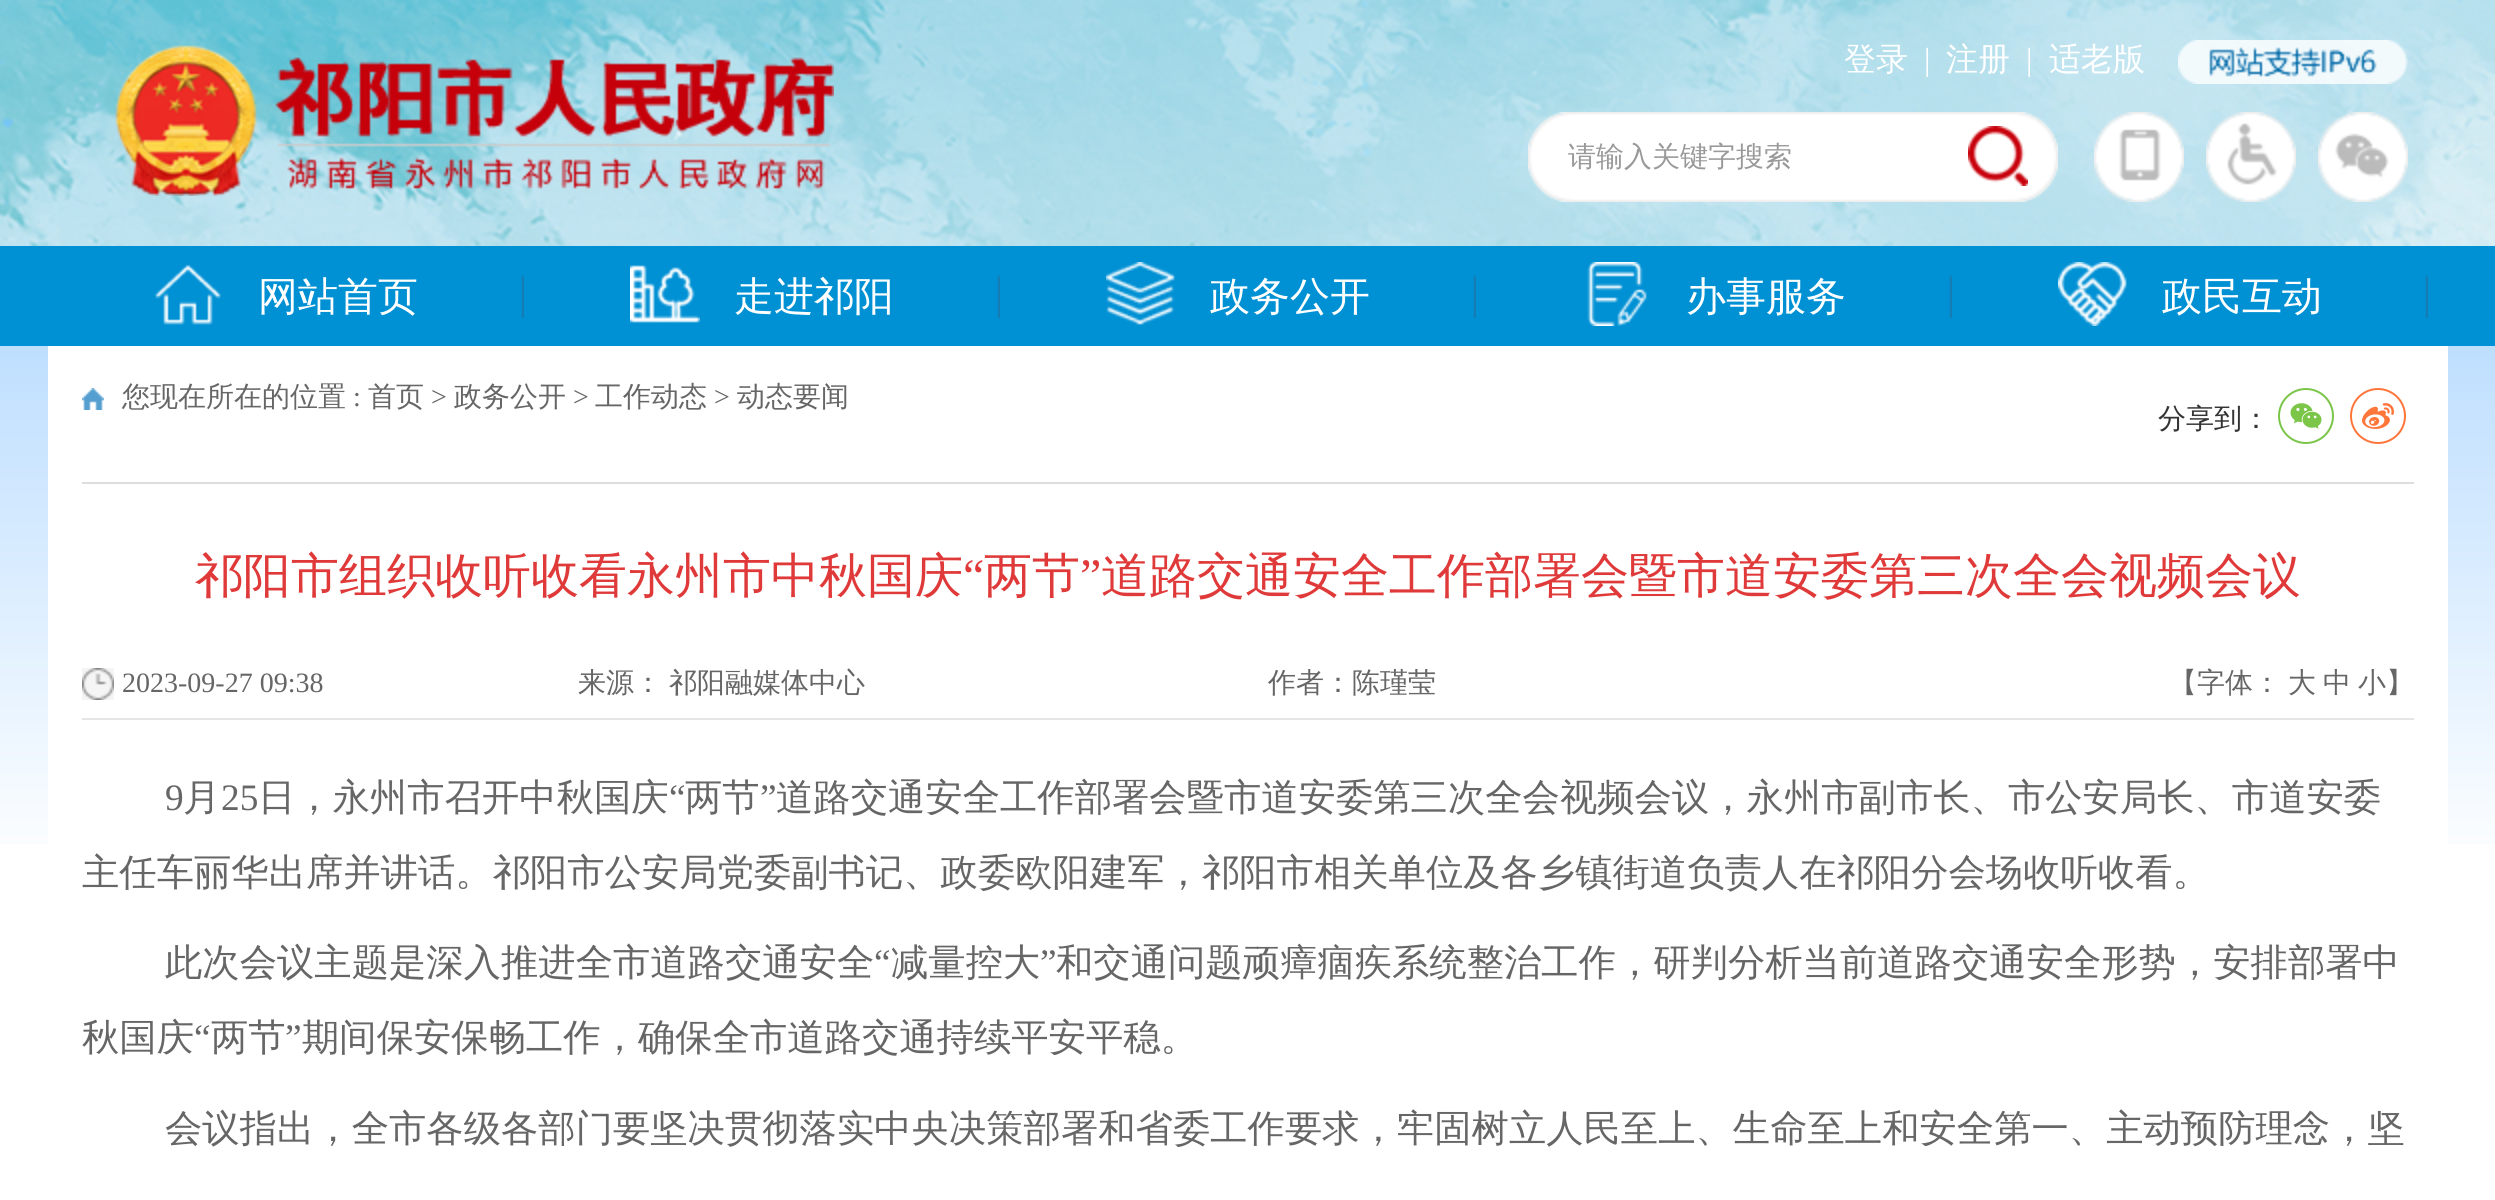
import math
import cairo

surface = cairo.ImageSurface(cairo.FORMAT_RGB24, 2495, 1200)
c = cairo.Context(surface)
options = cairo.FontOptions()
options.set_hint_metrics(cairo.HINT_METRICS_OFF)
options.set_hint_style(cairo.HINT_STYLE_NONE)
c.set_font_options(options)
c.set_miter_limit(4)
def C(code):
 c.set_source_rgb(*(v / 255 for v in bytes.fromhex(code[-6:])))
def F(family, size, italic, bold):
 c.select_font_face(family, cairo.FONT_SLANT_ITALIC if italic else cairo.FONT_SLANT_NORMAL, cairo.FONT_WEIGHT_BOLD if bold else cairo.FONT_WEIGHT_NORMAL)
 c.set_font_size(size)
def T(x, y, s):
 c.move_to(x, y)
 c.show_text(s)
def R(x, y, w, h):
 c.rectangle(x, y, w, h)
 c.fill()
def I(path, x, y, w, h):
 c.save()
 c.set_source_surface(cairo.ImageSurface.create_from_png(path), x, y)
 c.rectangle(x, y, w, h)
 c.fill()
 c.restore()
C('ffffff')
c.paint()
I('1.png',0,0,2495,246)
I('2.png',115,45,719,151)
F('WenQuanYi Zen Hei Medium',32,0,0)
C('ffffff')
T(1844,70,'登录')
F('Liberation Serif',32,0,0)
T(1924,70,'|')
F('WenQuanYi Zen Hei Medium',32,0,0)
T(1946,70,'注册')
F('Liberation Serif',32,0,0)
T(2026,70,'|')
F('WenQuanYi Zen Hei Medium',32,0,0)
T(2049,70,'适老版')
I('3.png',2178,40,230,44)
I('4.png',1528,112,530,90)
F('WenQuanYi Zen Hei Medium',28,0,0)
C('999999')
T(1568,166,'请输入关键字搜索')
I('5.png',1968,126,60,60)
I('6.png',2094,112,90,90)
I('7.png',2206,112,90,90)
I('8.png',2318,112,90,90)
C('0090d4')
R(0,246,2495,100)
I('9.png',521,275,3,44)
I('10.png',155,264,66,61)
F('WenQuanYi Zen Hei Medium',40,0,0)
C('ffffff')
T(258,310,'网站首页')
I('9.png',997,275,3,44)
I('11.png',630,265,70,58)
T(734,310,'走进祁阳')
I('9.png',1473,275,3,44)
I('12.png',1106,262,69,63)
T(1210,310,'政务公开')
I('9.png',1949,275,3,44)
I('13.png',1587,262,60,64)
T(1686,310,'办事服务')
I('9.png',2425,275,3,44)
I('14.png',2058,262,69,64)
T(2162,310,'政民互动')
I('15.png',0,346,2495,498)
R(48,346,2400,498)
C('dddddd')
R(82,482,2332,2)
I('16.png',82,388,22,22)
F('WenQuanYi Zen Hei Medium',28,0,0)
C('666666')
T(122,406,'您现在所在的位置')
F('Liberation Serif',28,0,0)
T(353,406,':')
F('WenQuanYi Zen Hei Medium',28,0,0)
T(368,406,'首页')
F('Liberation Serif',28,0,0)
T(431,406,'>')
F('WenQuanYi Zen Hei Medium',28,0,0)
T(454,406,'政务公开')
F('Liberation Serif',28,0,0)
T(573,406,'>')
F('WenQuanYi Zen Hei Medium',28,0,0)
T(595,406,'工作动态')
F('Liberation Serif',28,0,0)
T(714,406,'>')
F('WenQuanYi Zen Hei Medium',28,0,0)
T(737,406,'动态要闻')
C('333333')
T(2158,428,'分享到：')
c.new_path()
c.arc(2306,416,27,0,2 * math.pi)
C('7bc549')
c.stroke()
I('17.png',2290,403,32,26)
c.arc(2378,416,27,0,2 * math.pi)
C('ff763b')
c.stroke()
I('18.png',2362,403,32,26)
F('WenQuanYi Zen Hei Medium',48,0,0)
C('df3a39')
T(195,592,'祁阳市组织收听收看永州市中秋国庆')
F('Liberation Serif',48,0,0)
T(963,592,'“')
F('WenQuanYi Zen Hei Medium',48,0,0)
T(984,592,'两节')
F('Liberation Serif',48,0,0)
T(1080,592,'”')
F('WenQuanYi Zen Hei Medium',48,0,0)
T(1101,592,'道路交通安全工作部署会暨市道安委第三次全会视频会议')
C('e5e5e5')
R(82,718,2332,2)
I('19.png',82,668,32,32)
F('Liberation Serif',28,0,0)
C('666666')
T(122,692,'2023-09-27 09:38')
F('WenQuanYi Zen Hei Medium',28,0,0)
T(578,692,'来源：')
T(669,692,'祁阳融媒体中心')
T(1268,692,'作者：陈瑾莹')
T(2169,692,'【字体：')
T(2288,692,'大')
T(2323,692,'中')
T(2358,692,'小】')
F('Liberation Serif',37.33,0,0)
T(165,810,'9')
F('WenQuanYi Zen Hei Medium',37.33,0,0)
T(183,810,'月')
F('Liberation Serif',37.33,0,0)
T(221,810,'25')
F('WenQuanYi Zen Hei Medium',37.33,0,0)
T(258,810,'日，永州市召开中秋国庆')
F('Liberation Serif',37.33,0,0)
T(669,810,'“')
F('WenQuanYi Zen Hei Medium',37.33,0,0)
T(685,810,'两节')
F('Liberation Serif',37.33,0,0)
T(760,810,'”')
F('WenQuanYi Zen Hei Medium',37.33,0,0)
T(776,810,'道路交通安全工作部署会暨市道安委第三次全会视频会议，永州市副市长、市公安局长、市道安委')
T(82,885,'主任车丽华出席并讲话。祁阳市公安局党委副书记、政委欧阳建军，祁阳市相关单位及各乡镇街道负责人在祁阳分会场收听收看。')
T(165,975,'此次会议主题是深入推进全市道路交通安全')
F('Liberation Serif',37.33,0,0)
T(874,975,'“')
F('WenQuanYi Zen Hei Medium',37.33,0,0)
T(891,975,'减量控大')
F('Liberation Serif',37.33,0,0)
T(1040,975,'”')
F('WenQuanYi Zen Hei Medium',37.33,0,0)
T(1056,975,'和交通问题顽瘴痼疾系统整治工作，研判分析当前道路交通安全形势，安排部署中')
T(82,1050,'秋国庆')
F('Liberation Serif',37.33,0,0)
T(194,1050,'“')
F('WenQuanYi Zen Hei Medium',37.33,0,0)
T(211,1050,'两节')
F('Liberation Serif',37.33,0,0)
T(285,1050,'”')
F('WenQuanYi Zen Hei Medium',37.33,0,0)
T(302,1050,'期间保安保畅工作，确保全市道路交通持续平安平稳。')
T(165,1141,'会议指出，全市各级各部门要坚决贯彻落实中央决策部署和省委工作要求，牢固树立人民至上、生命至上和安全第一、主动预防理念，坚')
surface.write_to_png('o.png')
